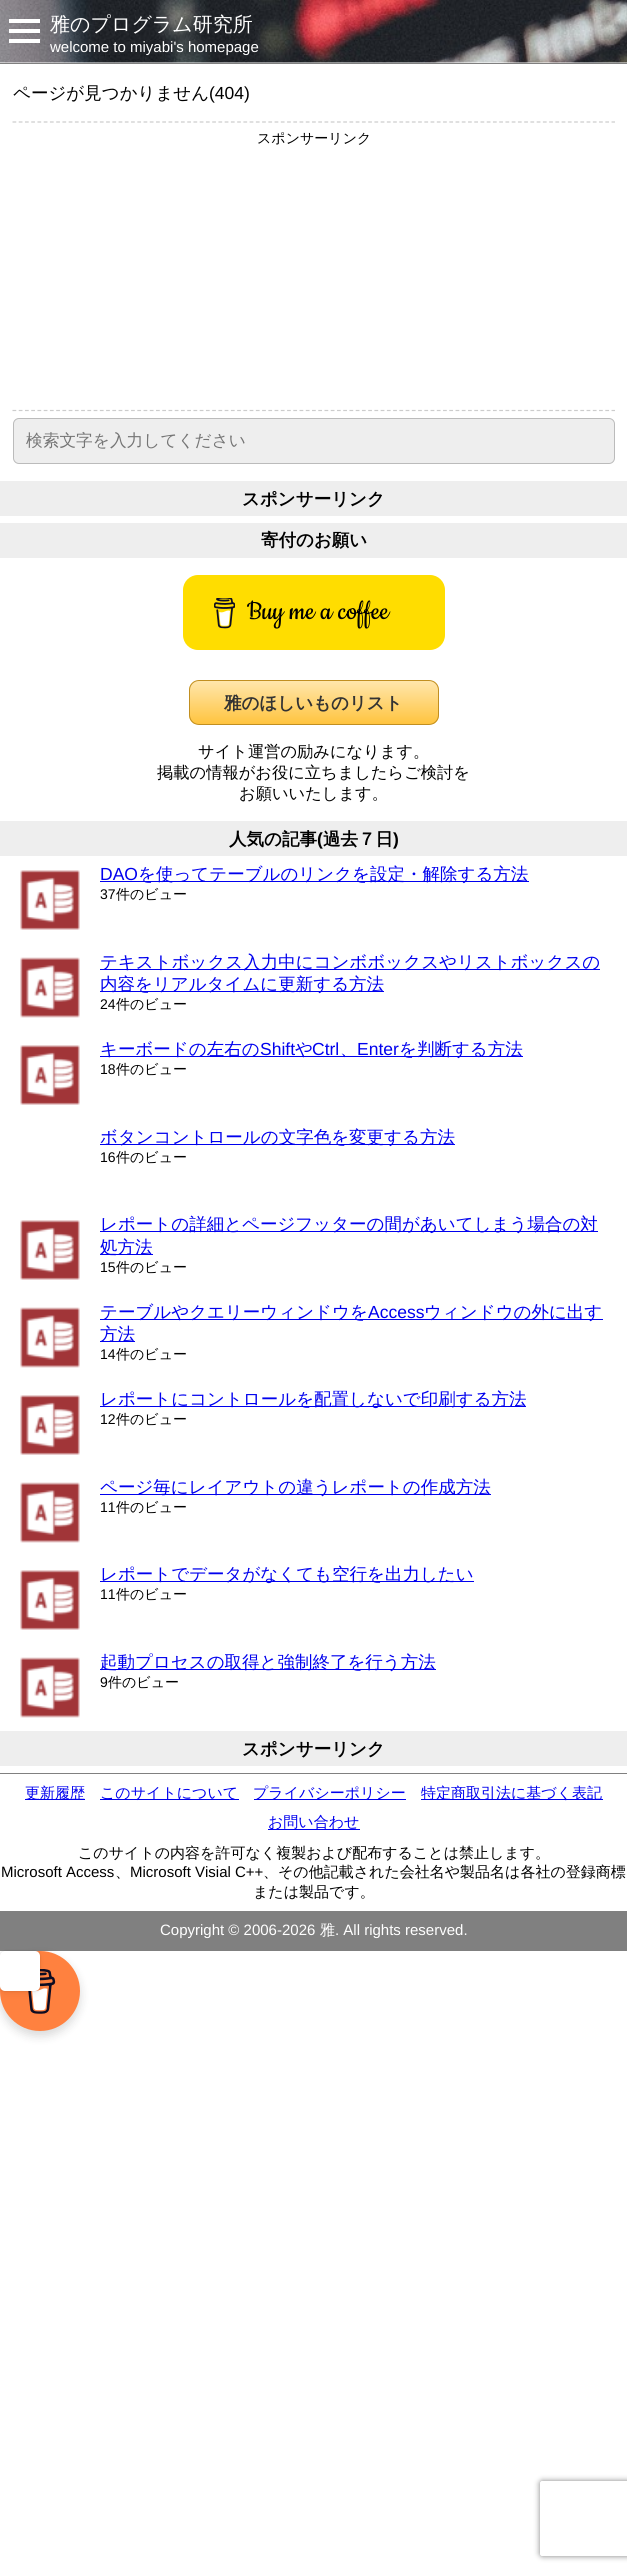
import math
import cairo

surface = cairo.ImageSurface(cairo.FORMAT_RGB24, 627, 2573)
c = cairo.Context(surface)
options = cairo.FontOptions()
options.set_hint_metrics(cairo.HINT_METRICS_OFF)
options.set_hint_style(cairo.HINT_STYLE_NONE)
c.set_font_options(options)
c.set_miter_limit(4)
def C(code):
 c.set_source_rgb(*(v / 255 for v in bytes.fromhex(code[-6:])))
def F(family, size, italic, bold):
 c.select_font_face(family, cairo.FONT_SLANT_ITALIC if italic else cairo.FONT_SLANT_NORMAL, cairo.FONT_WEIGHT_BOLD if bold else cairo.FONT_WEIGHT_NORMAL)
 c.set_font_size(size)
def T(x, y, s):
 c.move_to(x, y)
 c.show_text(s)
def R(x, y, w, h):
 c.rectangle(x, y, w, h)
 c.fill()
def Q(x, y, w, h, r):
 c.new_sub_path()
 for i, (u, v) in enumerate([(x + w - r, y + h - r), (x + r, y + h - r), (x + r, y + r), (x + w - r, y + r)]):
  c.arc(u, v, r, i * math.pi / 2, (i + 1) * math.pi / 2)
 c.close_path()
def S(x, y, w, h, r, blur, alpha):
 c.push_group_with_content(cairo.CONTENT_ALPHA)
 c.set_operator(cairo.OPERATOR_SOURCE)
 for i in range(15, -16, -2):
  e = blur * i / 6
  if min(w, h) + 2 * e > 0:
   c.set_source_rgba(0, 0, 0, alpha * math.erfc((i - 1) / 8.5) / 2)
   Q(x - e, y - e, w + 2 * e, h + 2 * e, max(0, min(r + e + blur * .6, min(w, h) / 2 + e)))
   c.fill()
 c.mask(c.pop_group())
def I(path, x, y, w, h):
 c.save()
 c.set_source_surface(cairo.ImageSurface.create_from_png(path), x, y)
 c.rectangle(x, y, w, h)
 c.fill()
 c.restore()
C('ffffff')
c.paint()
C('808080')
R(0,63,627,1)
I('1.png',0,0,627,63)
C('ffffff')
R(9,19,31,4)
R(9,29,31,4)
R(9,39,31,4)
F('WenQuanYi Zen Hei Medium',20,0,0)
T(50,31,'雅のプログラム研究所')
F('Liberation Sans',15,0,0)
T(50,52,'welcome to miyabi\'s homepage')
F('WenQuanYi Zen Hei Medium',17.5,0,0)
C('000000')
T(13,99,'ページが見つかりません')
F('Liberation Sans',17.5,0,0)
T(209,99,'(404)')
c.new_path()
c.move_to(12.5,122)
c.line_to(615,122)
C('cccccc')
c.set_line_width(1.2)
c.set_dash([3.75,2.49])
c.stroke()
c.new_path()
c.move_to(12.5,410.5)
c.line_to(615,410.5)
c.stroke()
F('WenQuanYi Zen Hei Medium',14,0,0)
C('000000')
T(257,143,'スポンサーリンク')
C('eeeeee')
Q(13.5,418.5,601,45,5.5)
c.fill_preserve()
C('bbbbbb')
c.set_line_width(1)
c.set_dash([])
c.stroke()
F('WenQuanYi Zen Hei Medium',16.7,0,0)
C('757575')
T(26,446,'検索文字を入力してください')
C('eeeeee')
R(0,481,627,35)
F('WenQuanYi Zen Hei',17.5,0,1)
C('000000')
T(242,505,'スポンサーリンク')
C('eeeeee')
R(0,523,627,35)
C('000000')
T(261,546,'寄付のお願い')
C('ffdd00')
Q(183,575,262,75,15)
c.fill()
I('2.png',214,598,21,31)
F('Cookie',30,0,0)
C('000000')
T(247,619,'Buy me a coffee')
c.save()
Q(189,680,250,45,10)
c.clip()
gradient = cairo.LinearGradient(314,681,314,724)
gradient.add_color_stop_rgba(0,1,0.902,0.675,1)
gradient.add_color_stop_rgba(1,1,0.769,0.247,1)
c.set_source(gradient)
R(189,681,250,43)
c.restore()
Q(189.5,680.5,249,44,9.5)
C('c18f21')
c.stroke()
F('WenQuanYi Zen Hei',17.5,0,1)
C('333333')
T(224,709,'雅のほしいものリスト')
F('WenQuanYi Zen Hei Medium',16.25,0,0)
C('000000')
T(198,757,'サイト運営の励みになります。')
T(157,778,'掲載の情報がお役に立ちましたらご検討を')
T(239,799,'お願いいたします。')
C('eeeeee')
R(0,821,627,35)
F('WenQuanYi Zen Hei',17.5,0,1)
C('000000')
T(229,845,'人気の記事')
F('Liberation Sans',17.5,0,1)
T(317,845,'(')
F('WenQuanYi Zen Hei',17.5,0,1)
T(323,845,'過去７日')
F('Liberation Sans',17.5,0,1)
T(393,845,')')
I('3.png',20,870,60,60)
F('Liberation Sans',17.5,0,0)
C('0000ee')
T(100,880,'DAO')
R(100,881,429,1)
F('WenQuanYi Zen Hei Medium',17.5,0,0)
T(138,880,'を使ってテーブルのリンクを設定・解除する方法')
F('Liberation Sans',14,0,0)
C('000000')
T(100,899,'37')
F('WenQuanYi Zen Hei Medium',14,0,0)
T(116,899,'件のビュー')
I('4.png',20,957,60,61)
C('0000ee')
R(100,969,500,1)
F('WenQuanYi Zen Hei Medium',17.5,0,0)
T(100,968,'テキストボックス入力中にコンボボックスやリストボックスの')
R(100,991,284,1)
T(100,990,'内容をリアルタイムに更新する方法')
F('Liberation Sans',14,0,0)
C('000000')
T(100,1009,'24')
F('WenQuanYi Zen Hei Medium',14,0,0)
T(116,1009,'件のビュー')
I('3.png',20,1045,60,60)
C('0000ee')
R(100,1056,423,1)
F('WenQuanYi Zen Hei Medium',17.5,0,0)
T(100,1055,'キーボードの左右の')
F('Liberation Sans',17.5,0,0)
T(260,1055,'Shift')
F('WenQuanYi Zen Hei Medium',17.5,0,0)
T(295,1055,'や')
F('Liberation Sans',17.5,0,0)
T(312,1055,'Ctrl')
F('WenQuanYi Zen Hei Medium',17.5,0,0)
T(340,1055,'、')
F('Liberation Sans',17.5,0,0)
T(357,1055,'Enter')
F('WenQuanYi Zen Hei Medium',17.5,0,0)
T(399,1055,'を判断する方法')
F('Liberation Sans',14,0,0)
C('000000')
T(100,1074,'18')
F('WenQuanYi Zen Hei Medium',14,0,0)
T(116,1074,'件のビュー')
C('0000ee')
R(100,1144,355,1)
F('WenQuanYi Zen Hei Medium',17.5,0,0)
T(100,1143,'ボタンコントロールの文字色を変更する方法')
F('Liberation Sans',14,0,0)
C('000000')
T(100,1162,'16')
F('WenQuanYi Zen Hei Medium',14,0,0)
T(116,1162,'件のビュー')
I('3.png',20,1220,60,60)
C('0000ee')
R(100,1231,498,1)
F('WenQuanYi Zen Hei Medium',17.5,0,0)
T(100,1230,'レポートの詳細とページフッターの間があいてしまう場合の対')
R(100,1254,53,1)
T(100,1253,'処方法')
F('Liberation Sans',14,0,0)
C('000000')
T(100,1272,'15')
F('WenQuanYi Zen Hei Medium',14,0,0)
T(116,1272,'件のビュー')
I('5.png',20,1307,60,61)
C('0000ee')
R(100,1319,503,1)
F('WenQuanYi Zen Hei Medium',17.5,0,0)
T(100,1318,'テーブルやクエリーウィンドウを')
F('Liberation Sans',17.5,0,0)
T(368,1318,'Access')
F('WenQuanYi Zen Hei Medium',17.5,0,0)
T(424,1318,'ウィンドウの外に出す')
R(100,1341,35,1)
T(100,1340,'方法')
F('Liberation Sans',14,0,0)
C('000000')
T(100,1359,'14')
F('WenQuanYi Zen Hei Medium',14,0,0)
T(116,1359,'件のビュー')
I('3.png',20,1395,60,60)
C('0000ee')
R(100,1406,426,1)
F('WenQuanYi Zen Hei Medium',17.5,0,0)
T(100,1405,'レポートにコントロールを配置しないで印刷する方法')
F('Liberation Sans',14,0,0)
C('000000')
T(100,1424,'12')
F('WenQuanYi Zen Hei Medium',14,0,0)
T(116,1424,'件のビュー')
I('5.png',20,1482,60,61)
C('0000ee')
R(100,1494,391,1)
F('WenQuanYi Zen Hei Medium',17.5,0,0)
T(100,1493,'ページ毎にレイアウトの違うレポートの作成方法')
F('Liberation Sans',14,0,0)
C('000000')
T(100,1512,'11')
F('WenQuanYi Zen Hei Medium',14,0,0)
T(116,1512,'件のビュー')
I('3.png',20,1570,60,60)
C('0000ee')
R(100,1581,374,1)
F('WenQuanYi Zen Hei Medium',17.5,0,0)
T(100,1580,'レポートでデータがなくても空行を出力したい')
F('Liberation Sans',14,0,0)
C('000000')
T(100,1599,'11')
F('WenQuanYi Zen Hei Medium',14,0,0)
T(116,1599,'件のビュー')
I('5.png',20,1657,60,61)
C('0000ee')
R(100,1669,336,1)
F('WenQuanYi Zen Hei Medium',17.5,0,0)
T(100,1668,'起動プロセスの取得と強制終了を行う方法')
F('Liberation Sans',14,0,0)
C('000000')
T(100,1687,'9')
F('WenQuanYi Zen Hei Medium',14,0,0)
T(108,1687,'件のビュー')
C('eeeeee')
R(0,1731,627,35)
F('WenQuanYi Zen Hei',17.5,0,1)
C('000000')
T(242,1755,'スポンサーリンク')
C('808080')
R(0,1773,627,1)
C('0000ee')
R(25,1799,60,1)
F('WenQuanYi Zen Hei Medium',15,0,0)
T(25,1798,'更新履歴')
R(100,1799,139,1)
T(100,1798,'このサイトについて')
R(254,1799,152,1)
T(253,1798,'プライバシーポリシー')
R(421,1799,182,1)
T(421,1798,'特定商取引法に基づく表記')
R(268,1829,92,1)
T(268,1827,'お問い合わせ')
C('000000')
T(78,1858,'このサイトの内容を許可なく複製および配布することは禁止します。')
F('Liberation Sans',15,0,0)
T(1,1877,'Microsoft Access')
F('WenQuanYi Zen Hei Medium',15,0,0)
T(115,1877,'、')
F('Liberation Sans',15,0,0)
T(130,1877,'Microsoft Visial C++')
F('WenQuanYi Zen Hei Medium',15,0,0)
T(263,1877,'、その他記載された会社名や製品名は各社の登録商標')
T(253,1897,'または製品です。')
C('808080')
R(0,1911,627,40)
F('Liberation Sans',15,0,0)
C('ffffff')
T(160,1935,'Copyright © 2006-2026')
F('WenQuanYi Zen Hei Medium',15,0,0)
T(320,1935,'雅')
F('Liberation Sans',15,0,0)
T(335,1935,'. All rights reserved.')
C('000000')
S(0,1956,80,80,40,5,.15)
C('ff813f')
c.arc(40,1991,40,0,2 * math.pi)
c.fill()
I('6.png',28,1969,28,45)
C('000000')
S(0,1951,40,40,5,1,.15)
S(0,1954,40,40,5,3,.05)
C('ffffff')
Q(0,1951,40,40,5)
c.fill()
c.save()
c.set_fill_rule(cairo.FILL_RULE_EVEN_ODD)
c.new_path()
c.move_to(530,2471)
c.line_to(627,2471)
c.line_to(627,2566)
c.line_to(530,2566)
c.close_path()
c.move_to(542.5,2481)
c.line_to(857.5,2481)
c.curve_to(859,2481,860,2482,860,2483.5)
c.line_to(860,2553.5)
c.curve_to(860,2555,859,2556,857.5,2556)
c.line_to(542.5,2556)
c.curve_to(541,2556,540,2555,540,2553.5)
c.line_to(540,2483.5)
c.curve_to(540,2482,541,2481,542.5,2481)
c.close_path()
c.clip()
C('808080')
S(540,2481,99,75,2.5,3,1)
c.restore()
surface.write_to_png('o.png')
